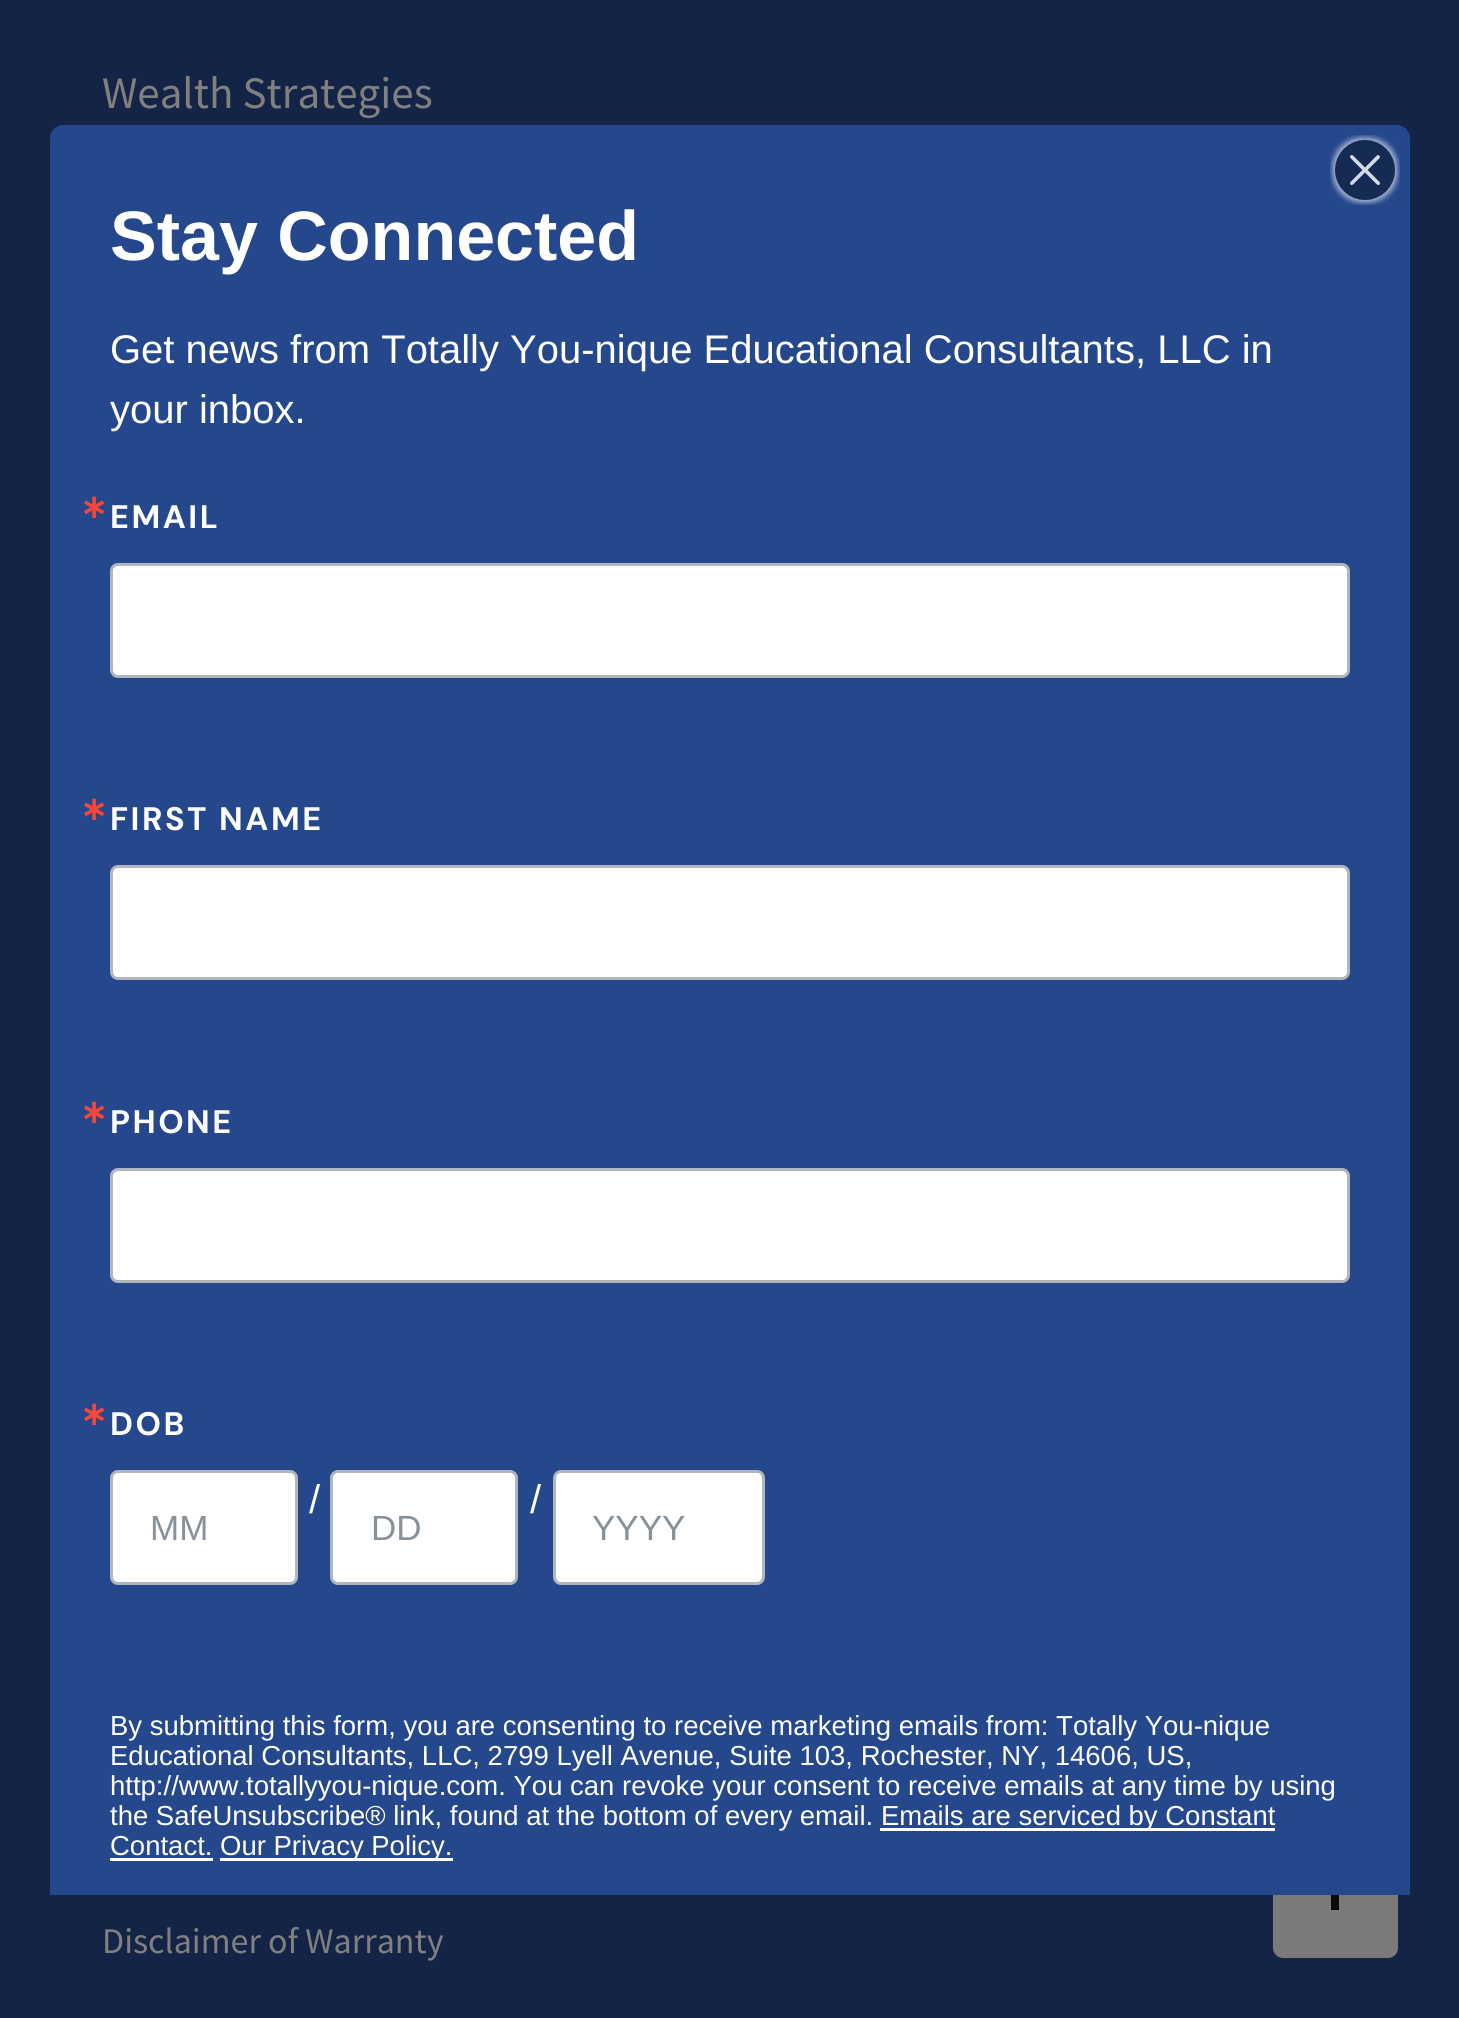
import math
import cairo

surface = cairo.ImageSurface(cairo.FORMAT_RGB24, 1459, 2018)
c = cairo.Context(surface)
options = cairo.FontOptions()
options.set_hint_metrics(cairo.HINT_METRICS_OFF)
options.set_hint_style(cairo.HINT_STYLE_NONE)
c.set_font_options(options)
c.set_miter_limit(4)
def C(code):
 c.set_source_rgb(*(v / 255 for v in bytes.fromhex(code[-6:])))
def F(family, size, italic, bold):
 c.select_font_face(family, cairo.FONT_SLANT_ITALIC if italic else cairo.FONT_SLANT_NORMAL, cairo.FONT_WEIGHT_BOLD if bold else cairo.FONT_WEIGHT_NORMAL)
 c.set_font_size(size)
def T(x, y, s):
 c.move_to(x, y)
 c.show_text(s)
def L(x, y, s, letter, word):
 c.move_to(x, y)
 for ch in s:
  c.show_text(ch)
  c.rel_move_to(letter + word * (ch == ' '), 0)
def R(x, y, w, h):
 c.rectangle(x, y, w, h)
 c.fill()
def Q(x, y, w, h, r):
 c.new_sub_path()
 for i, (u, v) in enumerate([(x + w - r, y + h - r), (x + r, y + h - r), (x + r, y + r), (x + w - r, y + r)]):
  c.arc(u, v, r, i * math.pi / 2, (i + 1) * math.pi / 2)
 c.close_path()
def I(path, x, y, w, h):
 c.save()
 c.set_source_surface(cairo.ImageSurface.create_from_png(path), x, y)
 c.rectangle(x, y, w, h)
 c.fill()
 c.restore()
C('132446')
c.paint()
F('Source Sans Pro',45,0,0)
C('808080')
T(102,108,'Wealth Strategies')
F('Source Sans Pro',36,0,0)
T(102,1953,'Disclaimer of Warranty')
C('7a7a7a')
Q(1273,1833,125,125,10)
c.fill()
C('090909')
c.new_path()
c.move_to(1335,1880)
c.line_to(1320,1895)
c.line_to(1331,1895)
c.line_to(1331,1910)
c.line_to(1339,1910)
c.line_to(1339,1895)
c.line_to(1350,1895)
c.close_path()
c.fill()
C('25478b')
c.new_path()
c.move_to(63,125)
c.line_to(1397,125)
c.curve_to(1404,125,1410,131,1410,138)
c.line_to(1410,1895)
c.line_to(50,1895)
c.line_to(50,138)
c.curve_to(50,131,56,125,63,125)
c.close_path()
c.fill()
I('1.png',1330,135,70,70)
F('Liberation Sans',70,0,1)
C('ffffff')
T(110,260,'Stay Connected')
F('Liberation Sans',40,0,0)
T(110,363,'Get news from Totally You-nique Educational Consultants, LLC in')
T(110,423,'your inbox.')
F('DejaVu Sans',32.5,0,1)
C('f5463b')
L(80,518,'∗',2.5,0)
F('DM Sans',32.5,0,1)
C('ffffff')
L(110,528,'EMAIL',2.5,0)
Q(111.5,564.5,1237,112,6.5)
c.fill_preserve()
C('b0b6bb')
c.set_line_width(3)
c.stroke()
F('DejaVu Sans',32.5,0,1)
C('f5463b')
L(80,820,'∗',2.5,0)
F('DM Sans',32.5,0,1)
C('ffffff')
L(110,830,'FIRST NAME',2.5,0)
Q(111.5,866.5,1237,112,6.5)
c.fill_preserve()
C('b0b6bb')
c.stroke()
F('DejaVu Sans',32.5,0,1)
C('f5463b')
L(80,1123,'∗',2.5,0)
F('DM Sans',32.5,0,1)
C('ffffff')
L(110,1133,'PHONE',2.5,0)
Q(111.5,1169.5,1237,112,6.5)
c.fill_preserve()
C('b0b6bb')
c.stroke()
F('DejaVu Sans',32.5,0,1)
C('f5463b')
L(80,1425,'∗',2.5,0)
F('DM Sans',32.5,0,1)
C('ffffff')
L(110,1435,'DOB',2.5,0)
F('Liberation Sans',40,0,0)
T(309,1513,'/')
T(530,1513,'/')
Q(111.5,1471.5,185,112,6.5)
c.fill_preserve()
C('b0b6bb')
c.stroke()
F('Liberation Sans',35,0,0)
C('88919a')
T(150,1540,'MM')
C('ffffff')
Q(331.5,1471.5,185,112,6.5)
c.fill_preserve()
C('b0b6bb')
c.stroke()
C('88919a')
T(371,1540,'DD')
C('ffffff')
Q(554.5,1471.5,209,112,6.5)
c.fill_preserve()
C('b0b6bb')
c.stroke()
C('88919a')
T(592,1540,'YYYY')
F('Liberation Sans',27.5,0,0)
C('ffffff')
T(110,1735,'By submitting this form, you are consenting to receive marketing emails from: Totally You-nique')
T(110,1765,'Educational Consultants, LLC, 2799 Lyell Avenue, Suite 103, Rochester, NY, 14606, US,')
T(110,1795,'http://www.totallyyou-nique.com. You can revoke your consent to receive emails at any time by using')
T(110,1825,'the SafeUnsubscribe® link, found at the bottom of every email.')
R(880,1828,395,3)
T(881,1825,'Emails are serviced by Constant')
T(110,1855,'Contact.')
R(110,1858,103,3)
R(220,1858,233,3)
T(220,1855,'Our Privacy Policy.')
surface.write_to_png('o.png')
